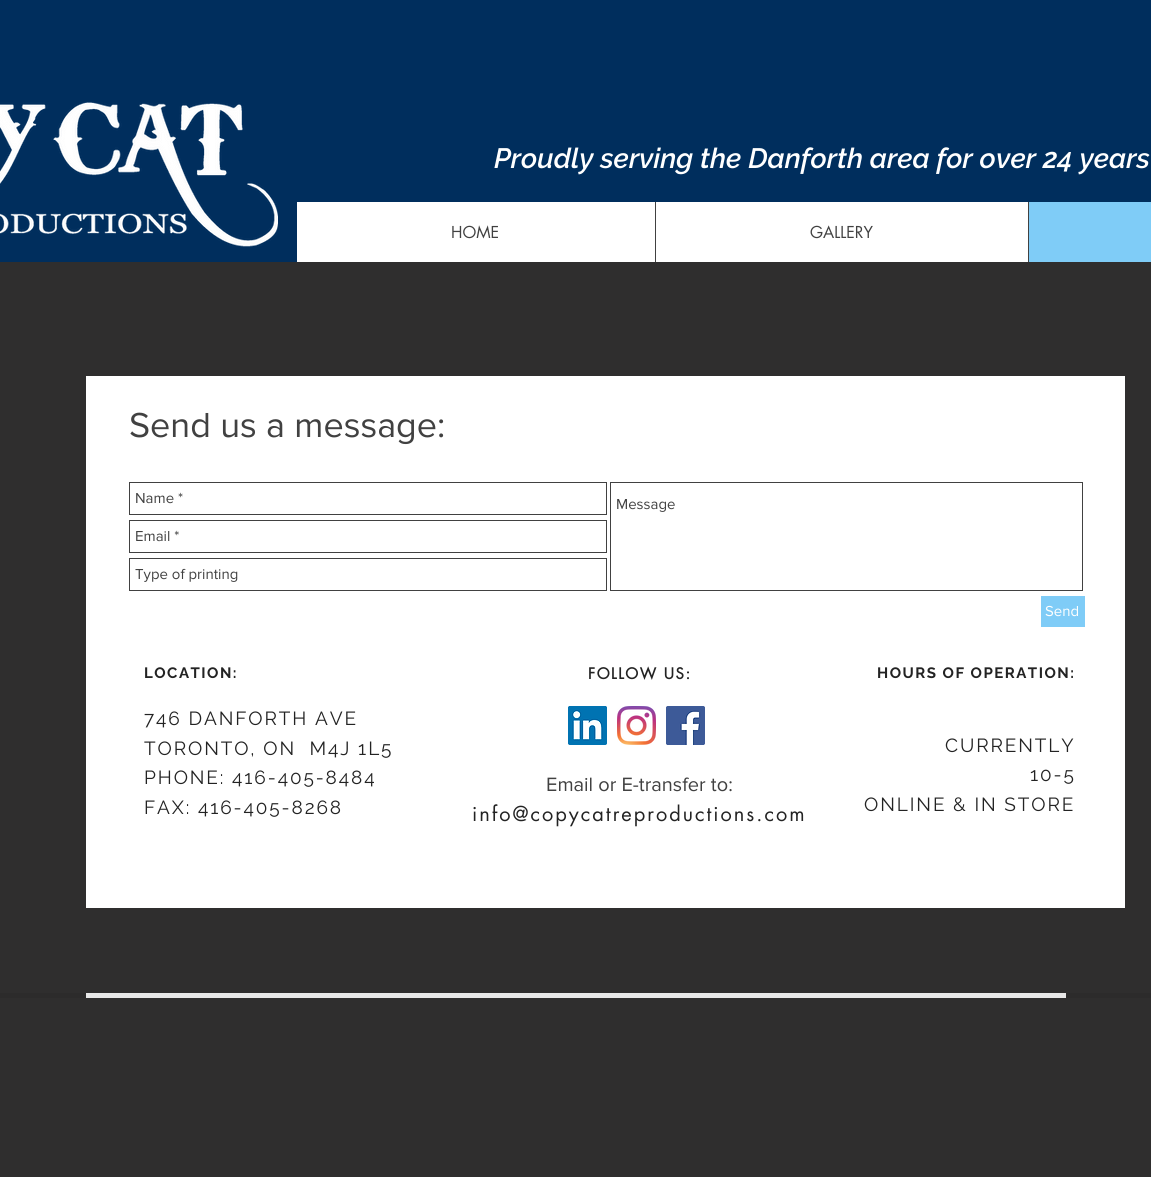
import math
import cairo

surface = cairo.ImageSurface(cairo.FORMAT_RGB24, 1151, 1177)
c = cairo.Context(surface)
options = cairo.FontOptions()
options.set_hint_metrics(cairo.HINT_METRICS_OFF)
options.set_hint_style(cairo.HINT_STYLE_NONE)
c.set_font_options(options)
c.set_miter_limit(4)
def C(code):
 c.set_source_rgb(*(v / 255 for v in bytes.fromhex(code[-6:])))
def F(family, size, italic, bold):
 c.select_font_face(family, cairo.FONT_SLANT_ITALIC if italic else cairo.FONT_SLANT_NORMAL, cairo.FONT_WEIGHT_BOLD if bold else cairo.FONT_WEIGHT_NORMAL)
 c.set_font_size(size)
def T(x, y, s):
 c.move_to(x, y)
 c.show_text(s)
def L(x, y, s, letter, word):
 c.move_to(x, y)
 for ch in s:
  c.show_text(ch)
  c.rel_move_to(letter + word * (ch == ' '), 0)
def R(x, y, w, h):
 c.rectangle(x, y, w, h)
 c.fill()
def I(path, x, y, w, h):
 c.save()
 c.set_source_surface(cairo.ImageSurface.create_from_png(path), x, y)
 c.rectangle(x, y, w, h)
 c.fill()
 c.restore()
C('2f2e2e')
c.paint()
C('002e5d')
R(0,0,1151,262)
I('1.png',0,102,278,145)
F('Raleway SemiBold',28,1,0)
C('ffffff')
T(494,168,'Proudly serving the Danforth area for over 24 years')
R(297,202,731,60)
F('futura',16,0,0)
C('414141')
T(451,238,'HOME')
R(655,202,1,60)
T(810,238,'GALLERY')
C('7fccf7')
R(1029,202,122,60)
C('414141')
R(1028,202,1,60)
C('ffffff')
R(86,376,1039,532)
F('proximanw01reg',36,0,0)
C('414141')
T(129,437,'Send us a message:')
c.rectangle(129.5,482.5,477,32)
c.set_line_width(1)
c.stroke()
F('proximanw01reg',15,0,0)
T(135,503,'Name *')
c.rectangle(610.5,482.5,472,108)
c.stroke()
T(616,509,'Message')
c.rectangle(129.5,520.5,477,32)
c.stroke()
T(135,541,'Email *')
c.rectangle(129.5,558.5,477,32)
c.stroke()
T(135,579,'Type of printing')
C('7fccf7')
R(1041,596,44,31)
C('ffffff')
T(1045,616,'Send')
F('Raleway',15,0,1)
C('232323')
L(144,678,'LOCATION:',1.5,0)
F('Raleway',19,0,0)
L(144,725,'746 DANFORTH AVE',1.9,0)
L(144,755,'TORONTO, ON  M4J 1L5',1.9,0)
L(144,784,'PHONE: 416-405-8484',1.9,0)
L(144,814,'FAX: 416-405-8268',1.9,0)
F('futura',15,0,1)
L(588,679,'FOLLOW US:',1.5,0)
F('proximanw01reg',20,0,0)
C('414141')
T(546,791,'Email or E-transfer to:')
F('futura',20,0,0)
C('232323')
L(472,821,'info@copycatreproductions.com',2,0)
F('Raleway',15,0,1)
L(877,678,'HOURS OF OPERATION:',1.5,0)
F('Raleway',19,0,0)
L(945,752,'CURRENTLY',1.9,0)
L(1030,781,'10-5',1.9,0)
L(864,811,'ONLINE & IN STORE',1.9,0)
I('2.png',568,706,39,39)
I('3.png',617,706,39,39)
I('4.png',666,706,39,39)
C('2c2b2b')
R(0,993,1151,5)
C('e8e8e8')
R(86,993,980,5)
surface.write_to_png('o.png')
